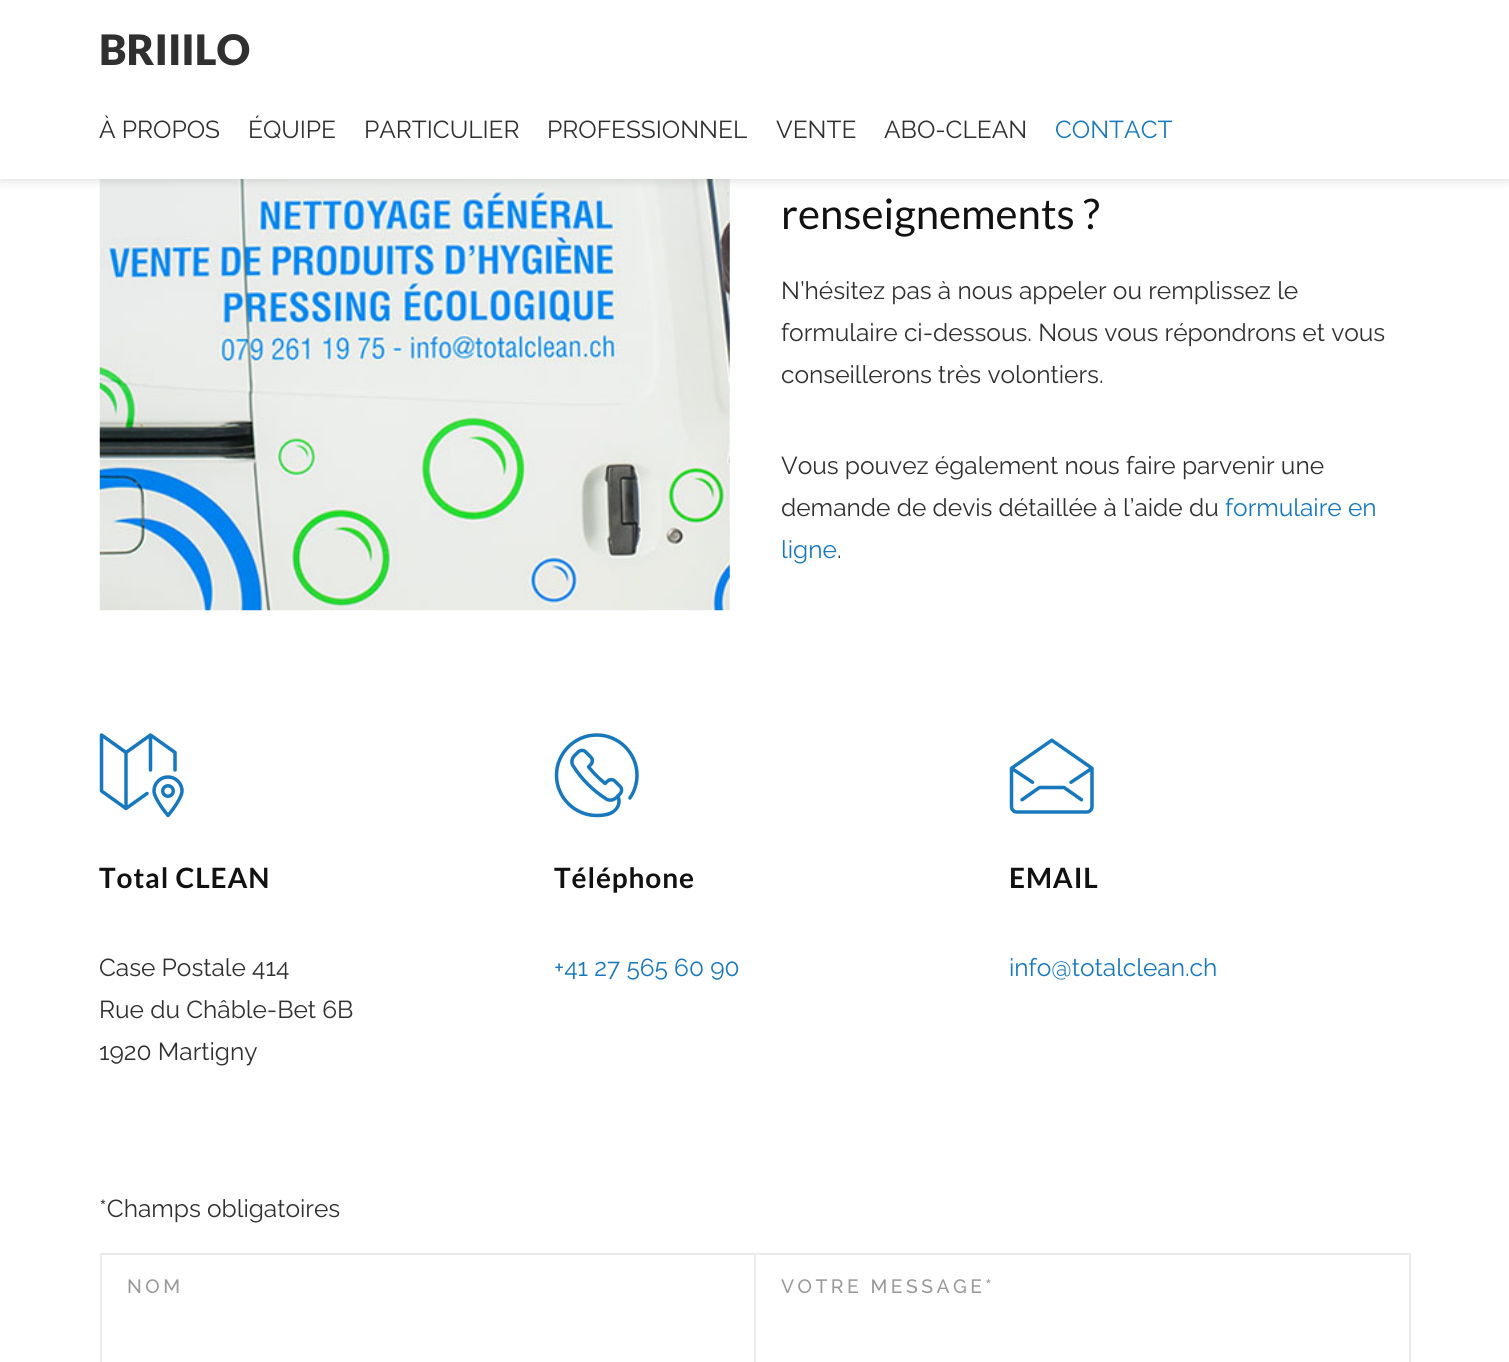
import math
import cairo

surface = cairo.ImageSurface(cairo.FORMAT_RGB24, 1509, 1362)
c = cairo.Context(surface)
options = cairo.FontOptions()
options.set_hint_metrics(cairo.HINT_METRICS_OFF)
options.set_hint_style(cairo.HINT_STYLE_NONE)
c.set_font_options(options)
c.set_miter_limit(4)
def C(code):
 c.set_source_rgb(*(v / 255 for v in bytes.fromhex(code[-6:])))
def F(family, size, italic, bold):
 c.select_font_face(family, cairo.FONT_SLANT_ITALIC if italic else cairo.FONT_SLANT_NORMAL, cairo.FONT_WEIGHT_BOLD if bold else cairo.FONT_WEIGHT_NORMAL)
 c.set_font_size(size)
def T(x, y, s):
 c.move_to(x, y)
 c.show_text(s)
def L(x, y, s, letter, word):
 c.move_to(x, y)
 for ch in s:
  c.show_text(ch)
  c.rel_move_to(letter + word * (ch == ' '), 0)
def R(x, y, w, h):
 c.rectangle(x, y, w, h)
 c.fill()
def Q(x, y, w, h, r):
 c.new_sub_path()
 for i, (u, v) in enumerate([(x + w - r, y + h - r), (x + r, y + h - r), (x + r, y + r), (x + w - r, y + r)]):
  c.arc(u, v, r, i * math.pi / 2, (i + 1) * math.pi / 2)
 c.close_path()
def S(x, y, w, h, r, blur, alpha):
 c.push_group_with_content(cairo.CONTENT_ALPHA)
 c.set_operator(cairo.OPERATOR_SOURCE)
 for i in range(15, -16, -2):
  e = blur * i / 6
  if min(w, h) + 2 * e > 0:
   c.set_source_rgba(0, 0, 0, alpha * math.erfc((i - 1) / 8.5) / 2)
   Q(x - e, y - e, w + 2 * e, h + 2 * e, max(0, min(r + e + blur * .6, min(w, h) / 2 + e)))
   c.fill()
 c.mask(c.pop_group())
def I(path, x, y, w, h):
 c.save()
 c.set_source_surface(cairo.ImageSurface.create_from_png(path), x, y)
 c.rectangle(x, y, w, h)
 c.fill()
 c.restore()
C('ffffff')
c.paint()
I('1.png',99,179,631,432)
C('000000')
S(0,4,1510,178,0,4.5,.1)
C('ffffff')
R(0,0,1509,179)
F('Lato Black',42,0,0)
C('303030')
T(99,65,'BRIIILO')
F('Raleway',24.5,0,0)
T(99,138,'À PROPOS')
T(248,138,'ÉQUIPE')
T(364,138,'PARTICULIER')
T(547,138,'PROFESSIONNEL')
T(776,138,'VENTE')
T(884,138,'ABO-CLEAN')
C('1778bd')
T(1055,138,'CONTACT')
F('Lato',42,0,0)
C('111111')
T(781,229,'renseignements ?')
F('Raleway',24.5,0,0)
C('303030')
T(781,299,'N’hésitez pas à nous appeler ou remplissez le')
T(781,341,'formulaire ci-dessous. Nous vous répondrons et vous')
T(781,383,'conseillerons très volontiers.')
T(781,474,'Vous pouvez également nous faire parvenir une')
T(781,516,'demande de devis détaillée à l’aide du')
C('1778bd')
T(1225,516,'formulaire en')
T(781,558,'ligne')
C('303030')
T(837,558,'.')
I('2.png',99,733,85,85)
F('Lato',28,0,1)
C('111111')
L(99,888,'Total CLEAN',.9,0)
F('Raleway',24.5,0,0)
C('303030')
T(99,976,'Case Postale 414')
T(99,1018,'Rue du Châble-Bet 6B')
T(99,1060,'1920 Martigny')
I('3.png',554,733,85,85)
F('Lato',28,0,1)
C('111111')
L(554,888,'Téléphone',.9,0)
F('Raleway',24.5,0,0)
C('1778bd')
T(554,976,'+41 27 565 60 90')
I('4.png',1009,738,85,76)
F('Lato',28,0,1)
C('111111')
L(1009,888,'EMAIL',.9,0)
F('Raleway',24.5,0,0)
C('1778bd')
T(1009,976,'info@totalclean.ch')
C('303030')
T(99,1217,'*Champs obligatoires')
c.rectangle(101,1254,654,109)
C('ebebeb')
c.stroke()
F('Raleway Medium',19.25,0,0)
C('999999')
L(127,1293,'NOM',3.5,0)
c.rectangle(755,1254,655,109)
C('ebebeb')
c.stroke()
C('999999')
L(781,1293,'VOTRE MESSAGE*',3.5,0)
surface.write_to_png('o.png')
